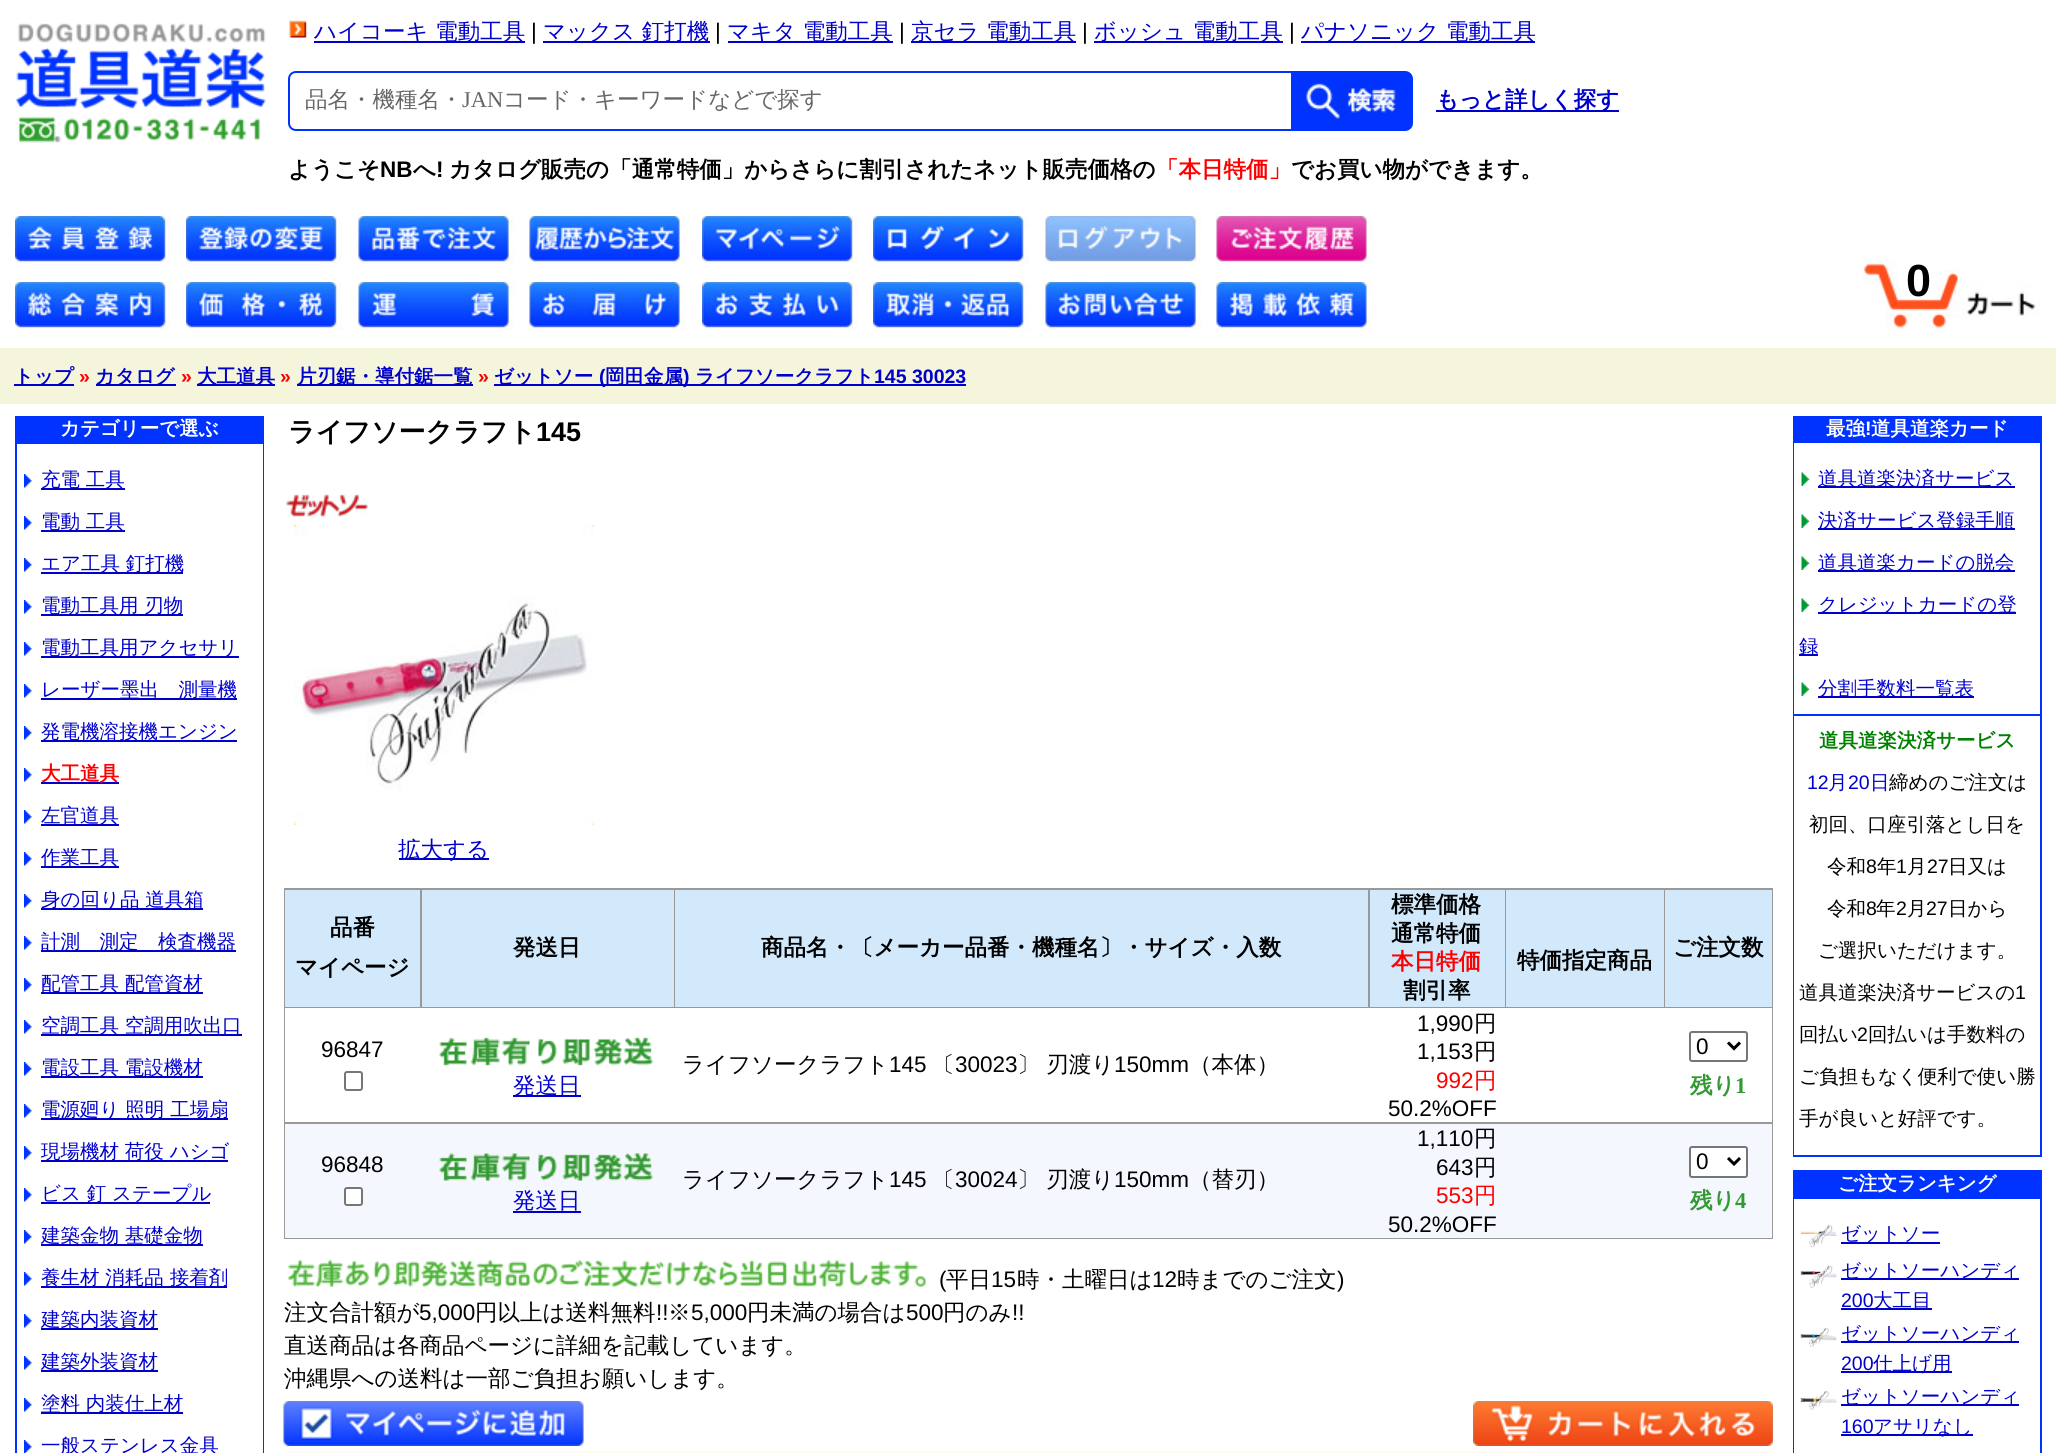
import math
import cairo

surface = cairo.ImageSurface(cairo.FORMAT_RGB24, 2056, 1453)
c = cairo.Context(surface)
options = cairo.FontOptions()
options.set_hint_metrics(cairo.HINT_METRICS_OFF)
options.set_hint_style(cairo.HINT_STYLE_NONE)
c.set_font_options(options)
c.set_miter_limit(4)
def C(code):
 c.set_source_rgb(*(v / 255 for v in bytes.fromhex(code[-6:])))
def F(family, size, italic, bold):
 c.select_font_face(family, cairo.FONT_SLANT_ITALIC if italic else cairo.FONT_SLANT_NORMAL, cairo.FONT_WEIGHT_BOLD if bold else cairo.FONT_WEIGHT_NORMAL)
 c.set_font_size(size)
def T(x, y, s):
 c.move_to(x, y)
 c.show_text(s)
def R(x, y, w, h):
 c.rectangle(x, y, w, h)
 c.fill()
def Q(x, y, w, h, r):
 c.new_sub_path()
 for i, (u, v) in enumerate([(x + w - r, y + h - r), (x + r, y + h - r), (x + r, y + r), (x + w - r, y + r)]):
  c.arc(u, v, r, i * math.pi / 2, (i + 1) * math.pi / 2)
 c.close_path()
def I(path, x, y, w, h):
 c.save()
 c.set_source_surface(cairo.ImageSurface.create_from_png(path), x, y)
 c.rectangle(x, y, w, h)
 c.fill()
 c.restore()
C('ffffff')
c.paint()
I('1.png',16,23,250,120)
I('2.png',289,20,18,18)
C('0000cc')
R(314,41,211,2)
F('WenQuanYi Zen Hei Medium',22.5,0,0)
T(314,39,'ハイコーキ 電動工具')
F('Liberation Sans',22.5,0,0)
C('000000')
T(531,39,'|')
C('0000cc')
R(543,41,167,2)
F('WenQuanYi Zen Hei Medium',22.5,0,0)
T(543,39,'マックス 釘打機')
F('Liberation Sans',22.5,0,0)
C('000000')
T(715,39,'|')
C('0000cc')
R(728,41,165,2)
F('WenQuanYi Zen Hei Medium',22.5,0,0)
T(727,39,'マキタ 電動工具')
F('Liberation Sans',22.5,0,0)
C('000000')
T(899,39,'|')
C('0000cc')
R(911,41,165,2)
F('WenQuanYi Zen Hei Medium',22.5,0,0)
T(911,39,'京セラ 電動工具')
F('Liberation Sans',22.5,0,0)
C('000000')
T(1082,39,'|')
C('0000cc')
R(1094,41,189,2)
F('WenQuanYi Zen Hei Medium',22.5,0,0)
T(1094,39,'ボッシュ 電動工具')
F('Liberation Sans',22.5,0,0)
C('000000')
T(1289,39,'|')
C('0000cc')
R(1301,41,234,2)
F('WenQuanYi Zen Hei Medium',22.5,0,0)
T(1301,39,'パナソニック 電動工具')
c.new_path()
c.move_to(296,72)
c.line_to(1292,72)
c.line_to(1292,130)
c.line_to(296,130)
c.curve_to(292,130,289,127,289,123)
c.line_to(289,79)
c.curve_to(289,75,292,72,296,72)
c.close_path()
C('0033ff')
c.stroke()
C('666666')
T(305,107,'品名・機種名・')
F('Liberation Serif',22.5,0,0)
T(462,107,'JAN')
F('WenQuanYi Zen Hei Medium',22.5,0,0)
T(503,107,'コード・キーワードなどで探す')
C('0033ff')
c.new_path()
c.move_to(1293,71)
c.line_to(1405,71)
c.curve_to(1409.5,71,1413,74.5,1413,79)
c.line_to(1413,123)
c.curve_to(1413,127.5,1409.5,131,1405,131)
c.line_to(1293,131)
c.close_path()
c.fill()
I('3.png',1306,78,97,45)
C('0000cc')
R(1436,110,183,2)
F('WenQuanYi Zen Hei',22.5,0,1)
T(1436,107,'もっと詳しく探す')
C('000000')
T(288,177,'ようこそ')
F('Liberation Sans',22.5,0,1)
T(380,177,'NB')
F('WenQuanYi Zen Hei',22.5,0,1)
T(413,177,'へ')
F('Liberation Sans',22.5,0,1)
T(436,177,'!')
F('WenQuanYi Zen Hei',22.5,0,1)
T(449,177,'カタログ販売の「通常特価」からさらに割引されたネット販売価格の')
C('ff0000')
T(1156,177,'「本日特価」')
C('000000')
T(1291,177,'でお買い物ができます。')
I('4.png',15,216,156,48)
I('5.png',186,216,156,48)
I('6.png',358,216,157,48)
I('7.png',529,216,157,48)
I('8.png',702,216,156,48)
I('9.png',873,216,156,48)
I('10.png',1045,216,157,48)
I('11.png',1216,216,157,48)
I('12.png',15,282,156,48)
I('13.png',186,282,156,48)
I('14.png',358,282,157,48)
I('15.png',529,282,157,48)
I('16.png',702,282,156,48)
I('17.png',873,282,156,48)
I('18.png',1045,282,157,48)
I('19.png',1216,282,157,48)
I('20.png',1861,258,179,72)
F('Liberation Sans',45,0,1)
T(1906,296,'0')
C('f5f5dc')
R(0,348,2056,56)
C('0000cc')
R(14,384,60,2)
F('WenQuanYi Zen Hei',19.5,0,1)
T(14,383,'トップ')
F('Liberation Sans',19.5,0,1)
C('ff0000')
T(79,383,'»')
C('0000cc')
R(96,384,80,2)
F('WenQuanYi Zen Hei',19.5,0,1)
T(95,383,'カタログ')
F('Liberation Sans',19.5,0,1)
C('ff0000')
T(181,383,'»')
C('0000cc')
R(197,384,78,2)
F('WenQuanYi Zen Hei',19.5,0,1)
T(197,383,'大工道具')
F('Liberation Sans',19.5,0,1)
C('ff0000')
T(280,383,'»')
C('0000cc')
R(297,384,176,2)
F('WenQuanYi Zen Hei',19.5,0,1)
T(297,383,'片刃鋸・導付鋸一覧')
F('Liberation Sans',19.5,0,1)
C('ff0000')
T(478,383,'»')
C('0000cc')
R(494,384,472,2)
F('WenQuanYi Zen Hei',19.5,0,1)
T(494,383,'ゼットソー')
F('Liberation Sans',19.5,0,1)
T(599,383,'(')
F('WenQuanYi Zen Hei',19.5,0,1)
T(605,383,'岡田金属')
F('Liberation Sans',19.5,0,1)
T(683,383,')')
F('WenQuanYi Zen Hei',19.5,0,1)
T(695,383,'ライフソークラフト')
F('Liberation Sans',19.5,0,1)
T(874,383,'145 30023')
C('0033ff')
R(15,416,249,1037)
F('WenQuanYi Zen Hei',19.5,0,1)
C('ffffff')
T(60,435,'カテゴリーで選ぶ')
R(17,444,246,1009)
I('21.png',24,474,8,14)
C('0000cc')
R(41,488,84,2)
F('WenQuanYi Zen Hei Medium',19.5,0,0)
T(41,486,'充電 工具')
I('21.png',24,516,8,14)
R(41,530,84,2)
T(41,528,'電動 工具')
I('21.png',24,558,8,14)
R(41,572,142,2)
T(41,570,'エア工具 釘打機')
I('21.png',24,600,8,14)
R(41,614,142,2)
T(41,612,'電動工具用 刃物')
I('21.png',24,642,8,14)
R(41,656,198,2)
T(41,654,'電動工具用アクセサリ')
I('21.png',24,684,8,14)
R(41,698,196,2)
T(41,696,'レーザー墨出　測量機')
I('21.png',24,726,8,14)
R(41,740,196,2)
T(41,738,'発電機溶接機エンジン')
I('21.png',24,768,8,14)
R(41,782,78,2)
F('WenQuanYi Zen Hei',19.5,0,1)
C('ff0000')
T(41,780,'大工道具')
I('21.png',24,810,8,14)
C('0000cc')
R(41,824,78,2)
F('WenQuanYi Zen Hei Medium',19.5,0,0)
T(41,822,'左官道具')
I('21.png',24,852,8,14)
R(41,866,78,2)
T(41,864,'作業工具')
I('21.png',24,894,8,14)
R(41,908,162,2)
T(41,906,'身の回り品 道具箱')
I('21.png',24,936,8,14)
R(41,950,195,2)
T(41,948,'計測　測定　検査機器')
I('21.png',24,978,8,14)
R(41,992,162,2)
T(41,990,'配管工具 配管資材')
I('21.png',24,1020,8,14)
R(41,1034,201,2)
T(41,1032,'空調工具 空調用吹出口')
I('21.png',24,1062,8,14)
R(41,1076,162,2)
T(41,1074,'電設工具 電設機材')
I('21.png',24,1104,8,14)
R(41,1118,187,2)
T(41,1116,'電源廻り 照明 工場扇')
I('21.png',24,1146,8,14)
R(41,1160,187,2)
T(41,1158,'現場機材 荷役 ハシゴ')
I('21.png',24,1188,8,14)
R(41,1202,169,2)
T(41,1200,'ビス 釘 ステープル')
I('21.png',24,1230,8,14)
R(41,1244,162,2)
T(41,1242,'建築金物 基礎金物')
I('21.png',24,1272,8,14)
R(41,1286,186,2)
T(41,1284,'養生材 消耗品 接着剤')
I('21.png',24,1314,8,14)
R(41,1328,117,2)
T(41,1326,'建築内装資材')
I('21.png',24,1356,8,14)
R(41,1370,117,2)
T(41,1368,'建築外装資材')
I('21.png',24,1398,8,14)
R(41,1412,142,2)
T(41,1410,'塗料 内装仕上材')
I('22.png',24,1440,8,13)
T(41,1452,'一般ステンレス金具')
F('WenQuanYi Zen Hei',27,0,1)
C('000000')
T(288,441,'ライフソークラフト')
F('Liberation Sans',27,0,1)
T(536,441,'145')
I('23.png',286,494,82,23)
I('24.png',294,525,300,300)
C('0000cc')
R(399,858,90,2)
F('WenQuanYi Zen Hei Medium',22.5,0,0)
T(398,857,'拡大する')
C('999999')
R(284,888,1489,351)
C('d2e9fb')
R(285,890,135,117)
F('WenQuanYi Zen Hei',22.5,0,1)
C('000000')
T(330,935,'品番')
T(295,975,'マイページ')
C('d2e9fb')
R(422,890,252,117)
C('000000')
T(513,955,'発送日')
C('d2e9fb')
R(675,890,693,117)
C('000000')
T(761,955,'商品名・〔メーカー品番・機種名〕・サイズ・入数')
C('d2e9fb')
R(1370,890,135,117)
C('000000')
T(1391,912,'標準価格')
T(1391,941,'通常特価')
C('ff0000')
T(1391,969,'本日特価')
C('000000')
T(1403,998,'割引率')
C('d2e9fb')
R(1506,890,158,117)
C('000000')
T(1517,968,'特価指定商品')
C('d2e9fb')
R(1665,890,107,117)
C('000000')
T(1673,955,'ご注文数')
C('ffffff')
R(285,1008,1487,114)
F('Liberation Sans',22.5,0,0)
C('000000')
T(321,1057,'96847')
Q(345,1072,17,18,2)
C('767676')
c.stroke()
C('000000')
T(1417,1031,'1,990')
F('WenQuanYi Zen Hei Medium',22.5,0,0)
T(1474,1031,'円')
F('Liberation Sans',22.5,0,0)
T(1417,1059,'1,153')
F('WenQuanYi Zen Hei Medium',22.5,0,0)
T(1474,1059,'円')
F('Liberation Sans',22.5,0,0)
C('ff0000')
T(1436,1088,'992')
F('WenQuanYi Zen Hei Medium',22.5,0,0)
T(1474,1088,'円')
F('Liberation Sans',22.5,0,0)
C('000000')
T(1388,1116,'50.2%OFF')
Q(1690,1032,57,29,2)
C('767676')
c.stroke()
c.new_path()
c.move_to(1728,1042.5)
c.line_to(1734,1048.5)
c.line_to(1740,1042.5)
C('000000')
c.set_line_width(3)
c.stroke()
T(1696,1054,'0')
F('WenQuanYi Zen Hei',22.5,0,1)
C('339933')
T(1690,1093,'残り')
F('Liberation Serif',22.5,0,1)
T(1735,1093,'1')
F('WenQuanYi Zen Hei Medium',22.5,0,0)
C('000000')
T(682,1072,'ライフソークラフト')
F('Liberation Sans',22.5,0,0)
T(889,1072,'145')
F('WenQuanYi Zen Hei Medium',22.5,0,0)
T(932,1072,'〔')
F('Liberation Sans',22.5,0,0)
T(955,1072,'30023')
F('WenQuanYi Zen Hei Medium',22.5,0,0)
T(1017,1072,'〕 刃渡り')
F('Liberation Sans',22.5,0,0)
T(1114,1072,'150mm')
F('WenQuanYi Zen Hei Medium',22.5,0,0)
T(1189,1072,'（本体）')
I('25.png',439,1036,214,30)
C('0000cc')
R(513,1095,68,2)
T(513,1093,'発送日')
C('f4f7fd')
R(285,1124,1487,114)
F('Liberation Sans',22.5,0,0)
C('000000')
T(321,1172,'96848')
C('ffffff')
Q(345,1188,17,17,2)
c.fill_preserve()
C('767676')
c.set_line_width(2)
c.stroke()
C('000000')
T(1417,1146,'1,110')
F('WenQuanYi Zen Hei Medium',22.5,0,0)
T(1474,1146,'円')
F('Liberation Sans',22.5,0,0)
T(1436,1175,'643')
F('WenQuanYi Zen Hei Medium',22.5,0,0)
T(1474,1175,'円')
F('Liberation Sans',22.5,0,0)
C('ff0000')
T(1436,1203,'553')
F('WenQuanYi Zen Hei Medium',22.5,0,0)
T(1474,1203,'円')
F('Liberation Sans',22.5,0,0)
C('000000')
T(1388,1232,'50.2%OFF')
C('ffffff')
Q(1690,1147,57,30,2)
c.fill_preserve()
C('767676')
c.stroke()
c.new_path()
c.move_to(1728,1158)
c.line_to(1734,1164)
c.line_to(1740,1158)
C('000000')
c.set_line_width(3)
c.stroke()
T(1696,1169,'0')
F('WenQuanYi Zen Hei',22.5,0,1)
C('339933')
T(1690,1208,'残り')
F('Liberation Serif',22.5,0,1)
T(1735,1208,'4')
F('WenQuanYi Zen Hei Medium',22.5,0,0)
C('000000')
T(682,1187,'ライフソークラフト')
F('Liberation Sans',22.5,0,0)
T(889,1187,'145')
F('WenQuanYi Zen Hei Medium',22.5,0,0)
T(932,1187,'〔')
F('Liberation Sans',22.5,0,0)
T(955,1187,'30024')
F('WenQuanYi Zen Hei Medium',22.5,0,0)
T(1017,1187,'〕 刃渡り')
F('Liberation Sans',22.5,0,0)
T(1114,1187,'150mm')
F('WenQuanYi Zen Hei Medium',22.5,0,0)
T(1189,1187,'（替刃）')
I('26.png',439,1152,214,29)
C('0000cc')
T(513,1208,'発送日')
R(513,1211,68,2)
I('27.png',287,1259,639,28)
F('Liberation Sans',22.5,0,0)
C('000000')
T(939,1287,'(')
F('WenQuanYi Zen Hei Medium',22.5,0,0)
T(946,1287,'平日')
F('Liberation Sans',22.5,0,0)
T(991,1287,'15')
F('WenQuanYi Zen Hei Medium',22.5,0,0)
T(1017,1287,'時・土曜日は')
F('Liberation Sans',22.5,0,0)
T(1152,1287,'12')
F('WenQuanYi Zen Hei Medium',22.5,0,0)
T(1177,1287,'時までのご注文')
F('Liberation Sans',22.5,0,0)
T(1337,1287,')')
F('WenQuanYi Zen Hei Medium',22.5,0,0)
T(284,1320,'注文合計額が')
F('Liberation Sans',22.5,0,0)
T(419,1320,'5,000')
F('WenQuanYi Zen Hei Medium',22.5,0,0)
T(475,1320,'円以上は送料無料')
F('Liberation Sans',22.5,0,0)
T(656,1320,'!!')
F('WenQuanYi Zen Hei Medium',22.5,0,0)
T(668,1320,'※')
F('Liberation Sans',22.5,0,0)
T(691,1320,'5,000')
F('WenQuanYi Zen Hei Medium',22.5,0,0)
T(747,1320,'円未満の場合は')
F('Liberation Sans',22.5,0,0)
T(906,1320,'500')
F('WenQuanYi Zen Hei Medium',22.5,0,0)
T(943,1320,'円のみ')
F('Liberation Sans',22.5,0,0)
T(1012,1320,'!!')
F('WenQuanYi Zen Hei Medium',22.5,0,0)
T(284,1353,'直送商品は各商品ページに詳細を記載しています。')
T(284,1386,'沖縄県への送料は一部ご負担お願いします。')
I('28.png',283,1401,301,45)
I('29.png',1473,1401,300,45)
C('fffaf0')
R(284,1452,1489,1)
C('0033ff')
R(1793,416,249,741)
F('WenQuanYi Zen Hei',19.5,0,1)
C('ffffff')
T(1826,435,'最強')
F('Liberation Sans',19.5,0,1)
T(1865,435,'!')
F('WenQuanYi Zen Hei',19.5,0,1)
T(1871,435,'道具道楽カード')
R(1794,443,246,271)
I('30.png',1801,472,9,14)
C('0000cc')
R(1818,486,197,2)
F('WenQuanYi Zen Hei Medium',19.5,0,0)
T(1818,485,'道具道楽決済サービス')
I('30.png',1801,514,9,14)
R(1818,528,197,2)
T(1818,527,'決済サービス登録手順')
I('30.png',1801,556,9,14)
R(1818,570,197,2)
T(1818,569,'道具道楽カードの脱会')
I('30.png',1801,598,9,14)
R(1818,612,198,2)
T(1818,611,'クレジットカードの登')
R(1799,654,19,2)
T(1799,653,'録')
I('30.png',1801,682,9,14)
R(1818,696,156,2)
T(1818,695,'分割手数料一覧表')
C('ffffff')
R(1794,716,246,439)
F('WenQuanYi Zen Hei',19.5,0,1)
C('008000')
T(1819,747,'道具道楽決済サービス')
F('Liberation Sans',19.5,0,0)
C('0000cc')
T(1807,789,'12')
F('WenQuanYi Zen Hei Medium',19.5,0,0)
T(1828,789,'月')
F('Liberation Sans',19.5,0,0)
T(1848,789,'20')
F('WenQuanYi Zen Hei Medium',19.5,0,0)
T(1870,789,'日')
C('000000')
T(1889,789,'締めのご注文は')
T(1809,831,'初回、口座引落とし日を')
T(1827,873,'令和')
F('Liberation Sans',19.5,0,0)
T(1866,873,'8')
F('WenQuanYi Zen Hei Medium',19.5,0,0)
T(1877,873,'年')
F('Liberation Sans',19.5,0,0)
T(1896,873,'1')
F('WenQuanYi Zen Hei Medium',19.5,0,0)
T(1907,873,'月')
F('Liberation Sans',19.5,0,0)
T(1927,873,'27')
F('WenQuanYi Zen Hei Medium',19.5,0,0)
T(1948,873,'日又は')
T(1827,915,'令和')
F('Liberation Sans',19.5,0,0)
T(1866,915,'8')
F('WenQuanYi Zen Hei Medium',19.5,0,0)
T(1876,915,'年')
F('Liberation Sans',19.5,0,0)
T(1896,915,'2')
F('WenQuanYi Zen Hei Medium',19.5,0,0)
T(1907,915,'月')
F('Liberation Sans',19.5,0,0)
T(1926,915,'27')
F('WenQuanYi Zen Hei Medium',19.5,0,0)
T(1948,915,'日から')
T(1818,957,'ご選択いただけます。')
T(1799,999,'道具道楽決済サービスの')
F('Liberation Sans',19.5,0,0)
T(2015,999,'1')
F('WenQuanYi Zen Hei Medium',19.5,0,0)
T(1799,1041,'回払い')
F('Liberation Sans',19.5,0,0)
T(1857,1041,'2')
F('WenQuanYi Zen Hei Medium',19.5,0,0)
T(1868,1041,'回払いは手数料の')
T(1799,1083,'ご負担もなく便利で使い勝')
T(1799,1125,'手が良いと好評です。')
C('0033ff')
R(1793,1170,249,283)
F('WenQuanYi Zen Hei',19.5,0,1)
C('ffffff')
T(1838,1190,'ご注文ランキング')
R(1794,1199,246,254)
I('31.png',1800,1215,38,38)
C('0000cc')
R(1841,1242,99,2)
F('WenQuanYi Zen Hei Medium',19.5,0,0)
T(1841,1240,'ゼットソー')
I('32.png',1800,1255,37,38)
R(1841,1278,178,2)
T(1841,1277,'ゼットソーハンディ')
F('Liberation Sans',19.5,0,0)
T(1841,1307,'200')
R(1841,1308,91,2)
F('WenQuanYi Zen Hei Medium',19.5,0,0)
T(1873,1307,'大工目')
I('33.png',1800,1327,37,20)
R(1841,1341,178,2)
T(1841,1340,'ゼットソーハンディ')
F('Liberation Sans',19.5,0,0)
T(1841,1370,'200')
R(1841,1371,111,2)
F('WenQuanYi Zen Hei Medium',19.5,0,0)
T(1873,1370,'仕上げ用')
I('34.png',1800,1390,37,20)
R(1841,1404,178,2)
T(1841,1403,'ゼットソーハンディ')
F('Liberation Sans',19.5,0,0)
T(1841,1433,'160')
R(1841,1434,132,2)
F('WenQuanYi Zen Hei Medium',19.5,0,0)
T(1873,1433,'アサリなし')
surface.write_to_png('o.png')
